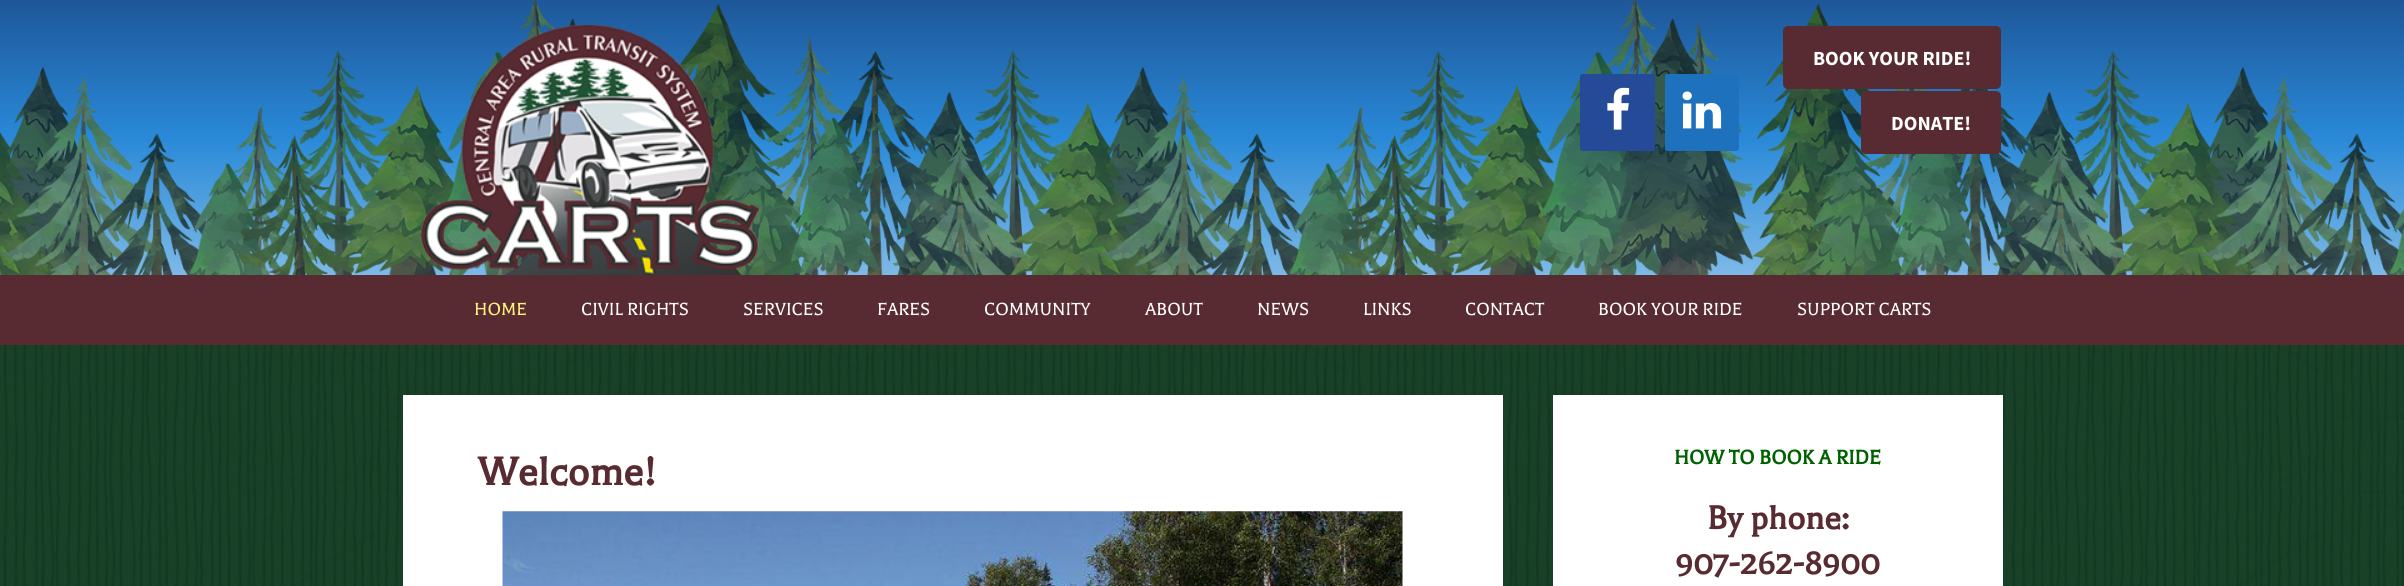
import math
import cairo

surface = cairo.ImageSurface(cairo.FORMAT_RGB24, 2404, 586)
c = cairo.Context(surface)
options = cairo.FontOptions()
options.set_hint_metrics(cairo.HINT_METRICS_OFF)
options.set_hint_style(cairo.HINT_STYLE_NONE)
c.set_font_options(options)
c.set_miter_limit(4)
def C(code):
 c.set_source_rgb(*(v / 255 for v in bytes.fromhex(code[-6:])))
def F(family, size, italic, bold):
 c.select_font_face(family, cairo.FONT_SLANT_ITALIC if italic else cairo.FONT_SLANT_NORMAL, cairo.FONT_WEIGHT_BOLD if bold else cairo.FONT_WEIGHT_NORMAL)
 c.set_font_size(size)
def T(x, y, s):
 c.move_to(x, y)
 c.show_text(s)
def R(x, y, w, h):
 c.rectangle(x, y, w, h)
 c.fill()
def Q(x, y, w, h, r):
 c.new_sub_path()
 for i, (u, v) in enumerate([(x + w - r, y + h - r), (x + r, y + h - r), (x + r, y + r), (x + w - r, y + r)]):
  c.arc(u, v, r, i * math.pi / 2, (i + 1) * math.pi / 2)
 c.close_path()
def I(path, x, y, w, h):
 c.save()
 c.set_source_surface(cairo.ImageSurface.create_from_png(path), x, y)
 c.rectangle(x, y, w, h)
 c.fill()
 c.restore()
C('ffffff')
c.paint()
I('1.png',0,345,2404,241)
gradient = cairo.LinearGradient(1203,0,1203,275)
gradient.add_color_stop_rgba(0,0.118,0.341,0.6,1)
gradient.add_color_stop_rgba(.5,0.161,0.537,0.847,1)
gradient.add_color_stop_rgba(1,0.49,0.725,0.91,1)
c.set_source(gradient)
R(0,0,2404,275)
I('2.png',0,0,2404,275)
I('3.png',420,25,340,250)
C('244a98')
Q(1580,74,75,77,2.5)
c.fill()
I('4.png',1607,87,23,43)
C('1e72bd')
Q(1665,74,74,77,2.5)
c.fill()
I('5.png',1682,91,40,38)
C('582a31')
Q(1783,26,218,63,5)
c.fill()
F('Source Sans Pro',20,0,1)
C('ffffff')
T(1813,65,'BOOK YOUR RIDE!')
C('582a31')
Q(1861,91,140,63,5)
c.fill()
C('ffffff')
T(1891,130,'DONATE!')
C('582a31')
R(0,275,2404,70)
F('Balthazar',20,0,0)
C('fff47f')
T(474,315,'HOME')
C('ffffff')
T(581,315,'CIVIL RIGHTS')
T(743,315,'SERVICES')
T(877,315,'FARES')
T(984,315,'COMMUNITY')
T(1145,315,'ABOUT')
T(1257,315,'NEWS')
T(1363,315,'LINKS')
T(1465,315,'CONTACT')
T(1598,315,'BOOK YOUR RIDE')
T(1797,315,'SUPPORT CARTS')
R(403,395,1100,191)
F('Balthazar',45,0,1)
C('582a31')
T(478,485,'Welcome!')
I('6.png',502,511,901,75)
C('ffffff')
R(1553,395,450,191)
F('Balthazar',22.5,0,1)
C('006100')
T(1674,464,'HOW TO BOOK A RIDE')
F('Balthazar',37.5,0,1)
C('582a31')
T(1707,529,'By phone:')
T(1675,574,'907-262-8900')
surface.write_to_png('o.png')
